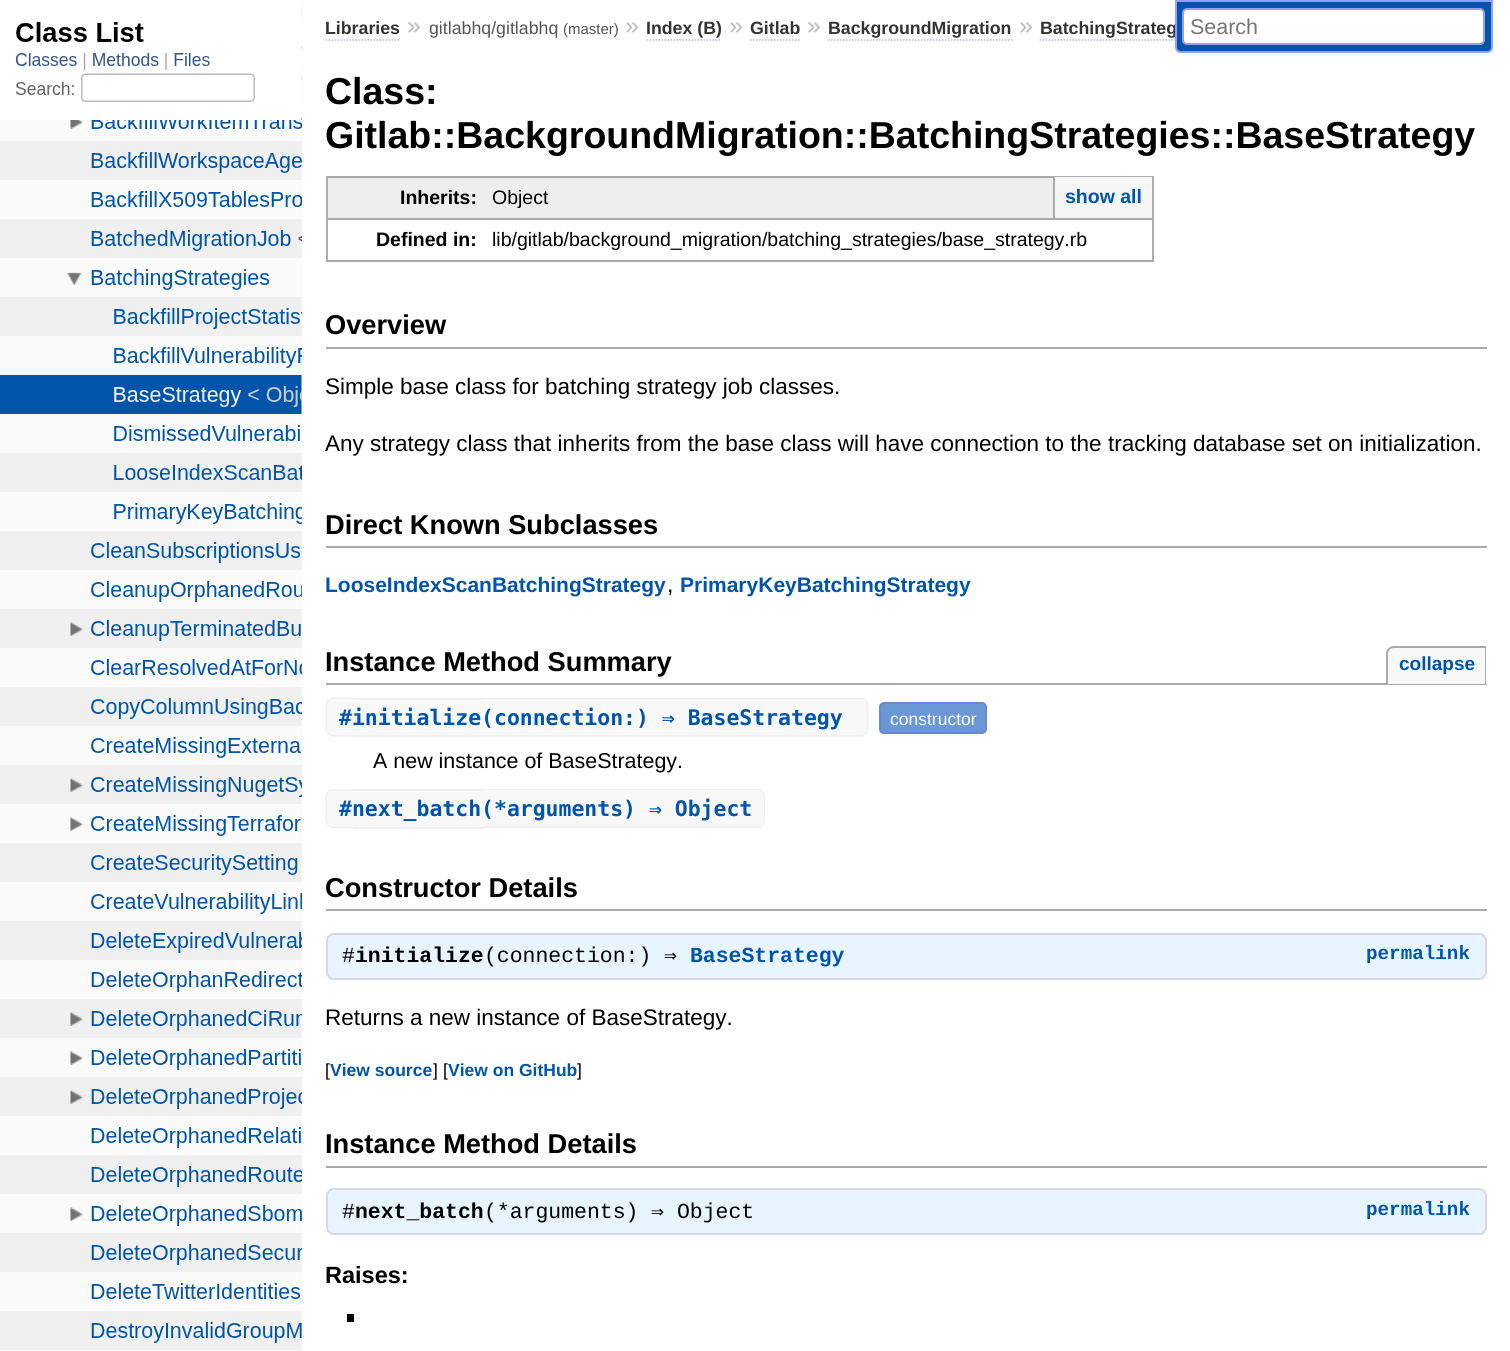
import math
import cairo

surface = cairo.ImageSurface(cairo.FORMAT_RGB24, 1510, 1351)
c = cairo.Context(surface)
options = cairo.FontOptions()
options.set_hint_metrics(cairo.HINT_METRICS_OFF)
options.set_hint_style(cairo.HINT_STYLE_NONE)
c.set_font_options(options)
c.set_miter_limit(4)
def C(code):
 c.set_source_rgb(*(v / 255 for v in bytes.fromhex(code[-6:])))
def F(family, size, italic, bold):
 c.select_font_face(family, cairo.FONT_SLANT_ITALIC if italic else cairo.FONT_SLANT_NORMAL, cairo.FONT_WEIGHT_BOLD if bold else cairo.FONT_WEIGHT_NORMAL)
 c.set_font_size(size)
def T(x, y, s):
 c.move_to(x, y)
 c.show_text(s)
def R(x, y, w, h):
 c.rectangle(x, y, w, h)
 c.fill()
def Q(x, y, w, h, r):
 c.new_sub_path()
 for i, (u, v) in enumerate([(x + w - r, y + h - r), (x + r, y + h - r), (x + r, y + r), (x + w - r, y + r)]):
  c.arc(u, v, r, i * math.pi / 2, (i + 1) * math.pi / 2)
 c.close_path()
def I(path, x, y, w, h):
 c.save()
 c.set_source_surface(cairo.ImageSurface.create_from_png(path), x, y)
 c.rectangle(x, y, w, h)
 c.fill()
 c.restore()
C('ffffff')
c.paint()
I('1.png',0,0,302,1351)
F('Liberation Sans',17.75,0,1)
C('333333')
T(325,34,'Libraries')
c.new_path()
c.move_to(325.5,40)
c.line_to(400.5,40)
C('bbbbdd')
c.set_line_width(1.5)
c.set_dash([1.5,1.5])
c.stroke()
F('Liberation Sans',25,0,0)
C('bbbbbb')
T(407,34,'»')
F('Liberation Sans',17.75,0,0)
C('555555')
T(429,34,'gitlabhq/gitlabhq')
F('Liberation Sans',15,0,0)
T(563,34,'(master)')
F('Liberation Sans',25,0,0)
C('bbbbbb')
T(625,34,'»')
F('Liberation Sans',17.75,0,1)
C('333333')
T(646,34,'Index (B)')
c.new_path()
c.move_to(646.5,40)
c.line_to(721.5,40)
C('bbbbdd')
c.stroke()
F('Liberation Sans',25,0,0)
C('bbbbbb')
T(729,34,'»')
F('Liberation Sans',17.75,0,1)
C('333333')
T(750,34,'Gitlab')
c.new_path()
c.move_to(750,40)
c.line_to(801,40)
C('bbbbdd')
c.stroke()
F('Liberation Sans',25,0,0)
C('bbbbbb')
T(807,34,'»')
F('Liberation Sans',17.75,0,1)
C('333333')
T(828,34,'BackgroundMigration')
c.new_path()
c.move_to(828,40)
c.line_to(1012.5,40)
C('bbbbdd')
c.stroke()
F('Liberation Sans',25,0,0)
C('bbbbbb')
T(1019,34,'»')
F('Liberation Sans',17.75,0,1)
C('333333')
T(1040,34,'BatchingStrateg')
c.new_path()
c.move_to(1039.5,40)
c.line_to(1201.5,40)
C('bbbbdd')
c.stroke()
C('0055aa')
c.new_path()
c.move_to(1176,1)
c.line_to(1492,1)
c.line_to(1492,47)
c.curve_to(1492,50,1490,52,1487,52)
c.line_to(1181,52)
c.curve_to(1178,52,1176,50,1176,47)
c.close_path()
c.fill_preserve()
C('9999ff')
c.set_line_width(2)
c.set_dash([])
c.stroke()
C('ffffff')
Q(1183,9,301,35,4)
c.fill_preserve()
C('9999ff')
c.stroke()
F('Liberation Sans',21.45,0,0)
C('757575')
T(1190,34,'Search')
F('Liberation Sans',37.5,0,1)
C('000000')
T(325,104,'Class:')
T(325,148,'Gitlab::BackgroundMigration::BatchingStrategies::BaseStrategy')
C('eeeeee')
R(328,178,725,40)
C('aaaaaa')
R(326,176,828,2)
R(326,176,2,42)
F('Liberation Sans',19.5,0,1)
C('000000')
T(400,204,'Inherits:')
C('aaaaaa')
R(326,218,828,2)
R(1152,176,2,85)
F('Liberation Sans',19.5,0,0)
C('000000')
T(492,204,'Object')
C('f6f6f6')
R(1055,177,97,41)
C('aaaaaa')
R(1053,177,2,41)
F('Liberation Sans',19.5,0,1)
C('0055aa')
T(1065,203,'show all')
C('aaaaaa')
R(326,260,166,2)
R(326,218,2,43)
C('000000')
T(376,246,'Defined in:')
C('aaaaaa')
R(492,260,662,2)
F('Liberation Sans',19.5,0,0)
C('000000')
T(492,246,'lib/gitlab/background_migration/batching_strategies/base_strategy.rb')
C('aaaaaa')
R(326,347,1161,2)
F('Liberation Sans',27.25,0,1)
C('000000')
T(325,334,'Overview')
F('Liberation Sans',22.5,0,0)
T(325,394,'Simple base class for batching strategy job classes.')
T(325,451,'Any strategy class that inherits from the base class will have connection to the tracking database set on initialization.')
C('aaaaaa')
R(326,546,1161,2)
F('Liberation Sans',27.25,0,1)
C('000000')
T(325,534,'Direct Known Subclasses')
F('Liberation Sans',21,0,1)
C('0055aa')
T(325,592,'LooseIndexScanBatchingStrategy')
F('Liberation Sans',23,0,0)
C('000000')
T(667,592,',')
F('Liberation Sans',21,0,1)
C('0055aa')
T(680,592,'PrimaryKeyBatchingStrategy')
C('aaaaaa')
R(326,683,1161,2)
F('Liberation Sans',27.25,0,1)
C('000000')
T(325,671,'Instance Method Summary')
C('f8f8f8')
c.new_path()
c.move_to(1394,647)
c.line_to(1487,647)
c.line_to(1487,684)
c.line_to(1386,684)
c.line_to(1386,655)
c.curve_to(1386,650.5,1389.5,647,1394,647)
c.close_path()
c.fill()
C('aaaaaa')
c.set_fill_rule(cairo.FILL_RULE_EVEN_ODD)
c.new_path()
c.move_to(1394,646)
c.line_to(1486,646)
c.line_to(1486,684)
c.line_to(1386,684)
c.line_to(1386,654)
c.curve_to(1386,650,1389,646,1394,646)
c.close_path()
c.move_to(1394,648)
c.line_to(1485,648)
c.line_to(1485,684)
c.line_to(1388,684)
c.line_to(1388,654)
c.curve_to(1388,651,1390,648,1394,648)
c.close_path()
c.fill()
F('Liberation Sans',19,0,1)
C('0055aa')
T(1399,670,'collapse')
C('f8f8f8')
c.new_path()
c.move_to(334,698)
c.line_to(353,698)
c.line_to(353,737)
c.line_to(334,737)
c.curve_to(329.5,737,326,733.5,326,729)
c.line_to(326,706)
c.curve_to(326,701.5,329.5,698,334,698)
c.close_path()
c.fill()
C('f0f0f0')
c.new_path()
c.move_to(333,697.5)
c.line_to(352.5,697.5)
c.line_to(352.5,736.5)
c.line_to(333,736.5)
c.curve_to(329,736.5,325.5,733,325.5,729)
c.line_to(325.5,705)
c.curve_to(325.5,701,329,697.5,333,697.5)
c.close_path()
c.move_to(333,699)
c.line_to(352.5,699)
c.line_to(352.5,735)
c.line_to(333,735)
c.curve_to(329.5,735,327,732.5,327,729)
c.line_to(327,705)
c.curve_to(327,701.5,329.5,699,333,699)
c.close_path()
c.fill()
C('f8f8f8')
R(353,700,129,35)
c.new_path()
c.move_to(482,698)
c.line_to(861,698)
c.curve_to(865.5,698,869,701.5,869,706)
c.line_to(869,729)
c.curve_to(869,733.5,865.5,737,861,737)
c.line_to(482,737)
c.close_path()
c.fill()
C('f0f0f0')
c.new_path()
c.move_to(482,698)
c.line_to(861,698)
c.curve_to(865,698,868,701,868,705)
c.line_to(868,729)
c.curve_to(868,733,865,736,861,736)
c.line_to(482,736)
c.close_path()
c.move_to(482,699)
c.line_to(861,699)
c.curve_to(864,699,867,702,867,705)
c.line_to(867,729)
c.curve_to(867,732,864,735,861,735)
c.line_to(482,735)
c.close_path()
c.fill()
F('DejaVu Sans Mono',21.45,0,1)
C('0055aa')
T(339,725,'#initialize(connection:) ⇒ BaseStrategy')
C('f0f0f0')
R(353,698,129,2)
R(353,735,129,2)
C('6a98d6')
Q(880,703,106,30,4)
c.fill_preserve()
C('6689d6')
c.stroke()
F('Liberation Sans',17.5,0,0)
C('ffffff')
T(890,725,'constructor')
F('Liberation Sans',21.45,0,0)
C('000000')
T(373,768,'A new instance of BaseStrategy.')
C('f8f8f8')
c.new_path()
c.move_to(334,789)
c.line_to(353,789)
c.line_to(353,828)
c.line_to(334,828)
c.curve_to(329.5,828,326,824.5,326,820)
c.line_to(326,797)
c.curve_to(326,792.5,329.5,789,334,789)
c.close_path()
c.fill()
C('f0f0f0')
c.new_path()
c.move_to(333,789)
c.line_to(352.5,789)
c.line_to(352.5,828)
c.line_to(333,828)
c.curve_to(329,828,325.5,824.5,325.5,820.5)
c.line_to(325.5,796.5)
c.curve_to(325.5,792.5,329,789,333,789)
c.close_path()
c.move_to(333,790.5)
c.line_to(352.5,790.5)
c.line_to(352.5,826.5)
c.line_to(333,826.5)
c.curve_to(329.5,826.5,327,824,327,820.5)
c.line_to(327,796.5)
c.curve_to(327,793,329.5,790.5,333,790.5)
c.close_path()
c.fill()
C('f8f8f8')
R(353,791,129,36)
c.new_path()
c.move_to(482,789)
c.line_to(757,789)
c.curve_to(761.5,789,765,792.5,765,797)
c.line_to(765,820)
c.curve_to(765,824.5,761.5,828,757,828)
c.line_to(482,828)
c.close_path()
c.fill()
C('f0f0f0')
c.new_path()
c.move_to(482,789)
c.line_to(758,789)
c.curve_to(762,789,765,792,765,796)
c.line_to(765,820)
c.curve_to(765,825,762,828,758,828)
c.line_to(482,828)
c.close_path()
c.move_to(482,790)
c.line_to(758,790)
c.curve_to(761,790,764,793,764,796)
c.line_to(764,820)
c.curve_to(764,824,761,826,758,826)
c.line_to(482,826)
c.close_path()
c.fill()
F('DejaVu Sans Mono',21.45,0,1)
C('0055aa')
T(339,816,'#next_batch(*arguments) ⇒ Object')
C('f0f0f0')
R(353,789,129,2)
R(353,827,129,2)
C('aaaaaa')
R(326,909,1161,2)
F('Liberation Sans',27.25,0,1)
C('000000')
T(325,897,'Constructor Details')
C('e8f4ff')
Q(327,934,1159,45,7)
c.fill_preserve()
C('d8d8e5')
c.stroke()
F('Liberation Mono',21.45,0,0)
C('000000')
T(342,962,'#')
F('Liberation Mono',21.45,0,1)
T(355,962,'initialize')
F('Liberation Mono',21.45,0,0)
T(484,962,'(connection:)')
F('DejaVu Sans Mono',21.45,0,0)
T(664,962,'⇒')
F('Liberation Mono',21.45,0,1)
C('0055aa')
T(690,962,'BaseStrategy')
F('Liberation Mono',19.25,0,1)
T(1366,959,'permalink')
F('Liberation Sans',22.5,0,0)
C('000000')
T(325,1025,'Returns a new instance of BaseStrategy.')
F('Liberation Sans',17.5,0,0)
T(325,1076,'[')
F('Liberation Sans',17.5,0,1)
C('0055aa')
T(330,1076,'View source')
F('Liberation Sans',17.5,0,0)
C('000000')
T(433,1076,']')
T(443,1076,'[')
F('Liberation Sans',17.5,0,1)
C('0055aa')
T(448,1076,'View on GitHub')
F('Liberation Sans',17.5,0,0)
C('000000')
T(577,1076,']')
C('aaaaaa')
R(326,1166,1161,2)
F('Liberation Sans',27.25,0,1)
C('000000')
T(325,1153,'Instance Method Details')
C('e8f4ff')
Q(327,1189,1159,45,7)
c.fill_preserve()
C('d8d8e5')
c.stroke()
F('Liberation Mono',21.45,0,0)
C('000000')
T(342,1218,'#')
F('Liberation Mono',21.45,0,1)
T(355,1218,'next_batch')
F('Liberation Mono',21.45,0,0)
T(484,1218,'(*arguments)')
F('DejaVu Sans Mono',21.45,0,0)
T(651,1218,'⇒')
F('Liberation Mono',21.45,0,0)
T(677,1218,'Object')
F('Liberation Mono',19.25,0,1)
C('0055aa')
T(1366,1215,'permalink')
F('Liberation Sans',23.5,0,1)
C('000000')
T(325,1283,'Raises:')
R(347,1314,7,8)
surface.write_to_png('o.png')
